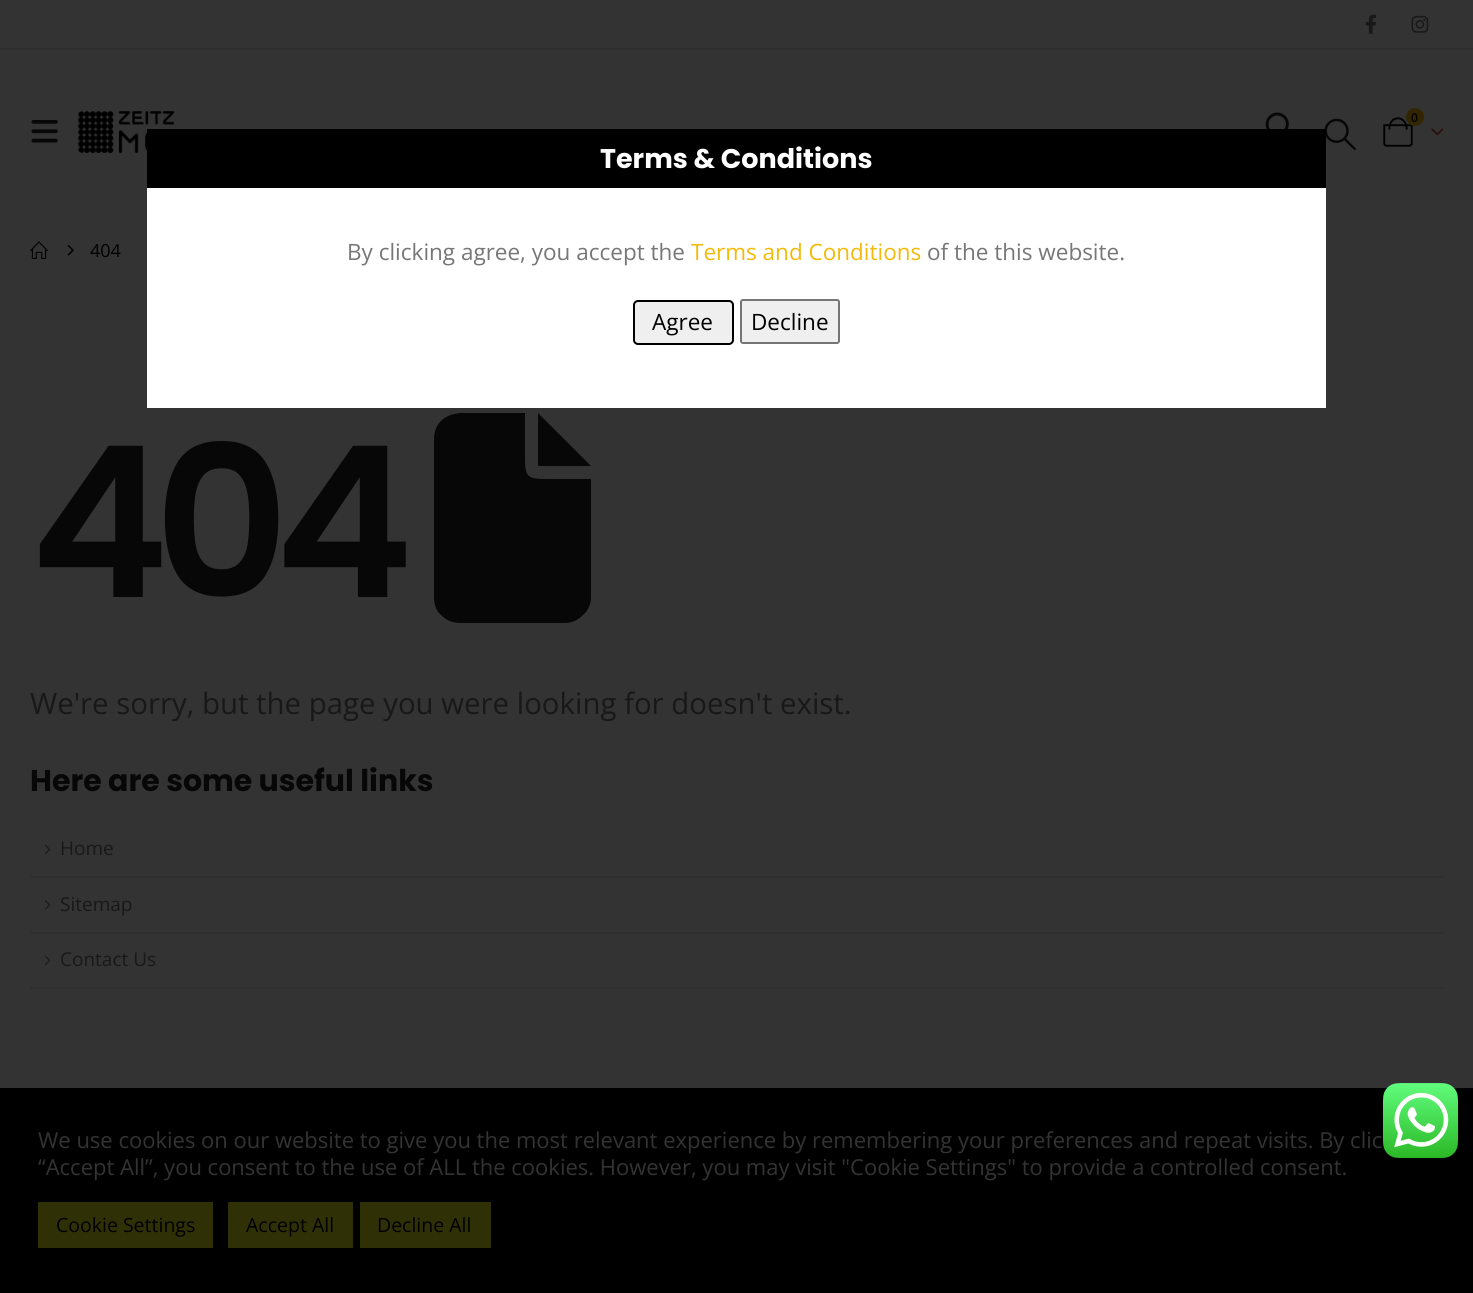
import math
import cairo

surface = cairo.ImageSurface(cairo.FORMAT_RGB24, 1473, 1293)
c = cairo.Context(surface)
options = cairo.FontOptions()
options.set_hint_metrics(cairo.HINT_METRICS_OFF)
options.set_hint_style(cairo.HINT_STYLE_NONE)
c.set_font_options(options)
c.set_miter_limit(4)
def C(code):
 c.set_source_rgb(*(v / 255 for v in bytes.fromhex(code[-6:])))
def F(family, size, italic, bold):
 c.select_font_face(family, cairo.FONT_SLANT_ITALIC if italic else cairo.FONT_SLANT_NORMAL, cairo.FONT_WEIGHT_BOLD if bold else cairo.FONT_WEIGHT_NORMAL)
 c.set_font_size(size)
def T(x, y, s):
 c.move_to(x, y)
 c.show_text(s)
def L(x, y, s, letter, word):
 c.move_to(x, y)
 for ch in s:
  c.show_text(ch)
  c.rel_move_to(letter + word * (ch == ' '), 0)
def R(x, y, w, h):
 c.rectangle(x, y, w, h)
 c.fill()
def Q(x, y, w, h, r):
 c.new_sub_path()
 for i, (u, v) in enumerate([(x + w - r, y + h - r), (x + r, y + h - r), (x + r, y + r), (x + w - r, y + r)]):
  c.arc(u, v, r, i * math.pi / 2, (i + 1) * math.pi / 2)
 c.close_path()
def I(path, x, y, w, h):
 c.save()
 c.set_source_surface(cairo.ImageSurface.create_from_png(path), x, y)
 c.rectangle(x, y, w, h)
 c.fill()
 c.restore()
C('333333')
c.paint()
C('2e2e2e')
R(0,48,1473,2)
I('1.png',1365,14,12,20)
I('2.png',1411,15,18,18)
I('3.png',31,120,27,23)
I('4.png',78,111,97,42)
I('5.png',1265,112,24,17)
I('6.png',1324,118,32,33)
I('7.png',1383,117,30,30)
C('312502')
c.arc(1415,117,9,0,2 * math.pi)
c.fill()
F('Open Sans SemiBold',12,0,0)
C('000000')
T(1411,122,'0')
I('8.png',1431,128,13,8)
I('9.png',30,241,18,18)
I('10.png',67,244,7,12)
F('Open Sans',18,0,0)
T(90,257,'404')
F('Poppins SemiBold',210,0,0)
C('070708')
L(30,597,'404',-15,0)
c.new_path()
c.move_to(434,440)
c.curve_to(434,432,436,426,441,421)
c.curve_to(446,416,452,414,460,413)
c.line_to(525,413)
c.line_to(525,457)
c.curve_to(525,477,527,479,547,479)
c.line_to(591,479)
c.line_to(591,597)
c.curve_to(591,604,588,611,583,615)
c.curve_to(578,620,572,623,565,623)
c.line_to(460,623)
c.curve_to(452,623,446,620,441,615)
c.curve_to(436,611,434,604,434,597)
c.close_path()
c.move_to(591,466)
c.line_to(538,466)
c.line_to(538,413)
c.close_path()
c.fill()
F('Open Sans',29.4,0,0)
C('181818')
T(30,714,'We\'re sorry, but the page you were looking for doesn\'t exist.')
F('Poppins',30,0,1)
C('070708')
T(30,791,'Here are some useful links')
C('2f2f2f')
R(30,876,1413,2)
I('11.png',44,844,7,11)
F('Open Sans',19,0,0)
C('181818')
T(60,855,'Home')
C('2f2f2f')
R(30,932,1413,2)
I('12.png',44,900,7,10)
C('181818')
T(60,911,'Sitemap')
C('2f2f2f')
R(30,987,1413,2)
I('11.png',44,955,7,11)
C('181818')
T(60,966,'Contact Us')
C('ffffff')
R(147,188,1179,220)
C('000000')
R(147,129,1179,59)
F('Poppins',27,0,1)
C('ffffff')
T(600,168,'Terms & Conditions')
F('Open Sans',22.5,0,0)
C('777777')
T(347,260,'By clicking agree, you accept the')
C('f3ba09')
T(691,260,'Terms and Conditions')
C('777777')
T(927,260,'of the this website.')
C('efefef')
Q(634,301,99,43,4)
c.fill_preserve()
C('000000')
c.stroke()
T(652,330,'Agree')
C('efefef')
Q(741,300,98,43,2)
c.fill_preserve()
C('767676')
c.stroke()
C('000000')
T(751,330,'Decline')
R(0,1088,1473,205)
I('13.png',1383,1083,75,75)
F('Open Sans',22,0,0)
C('333333')
T(38,1148,'We use cookies on our website to give you the most relevant experience by remembering your preferences and repeat visits. By clic')
T(38,1175,'“Accept All”, you consent to the use of ALL the cookies. However, you may visit "Cookie Settings" to provide a controlled consent.')
C('303007')
R(38,1202,175,46)
F('Open Sans',19.5,0,0)
C('000000')
T(56,1232,'Cookie Settings')
C('303007')
R(228,1202,125,46)
C('000000')
T(246,1232,'Accept All')
C('303007')
R(360,1202,131,46)
C('000000')
T(377,1232,'Decline All')
surface.write_to_png('o.png')
